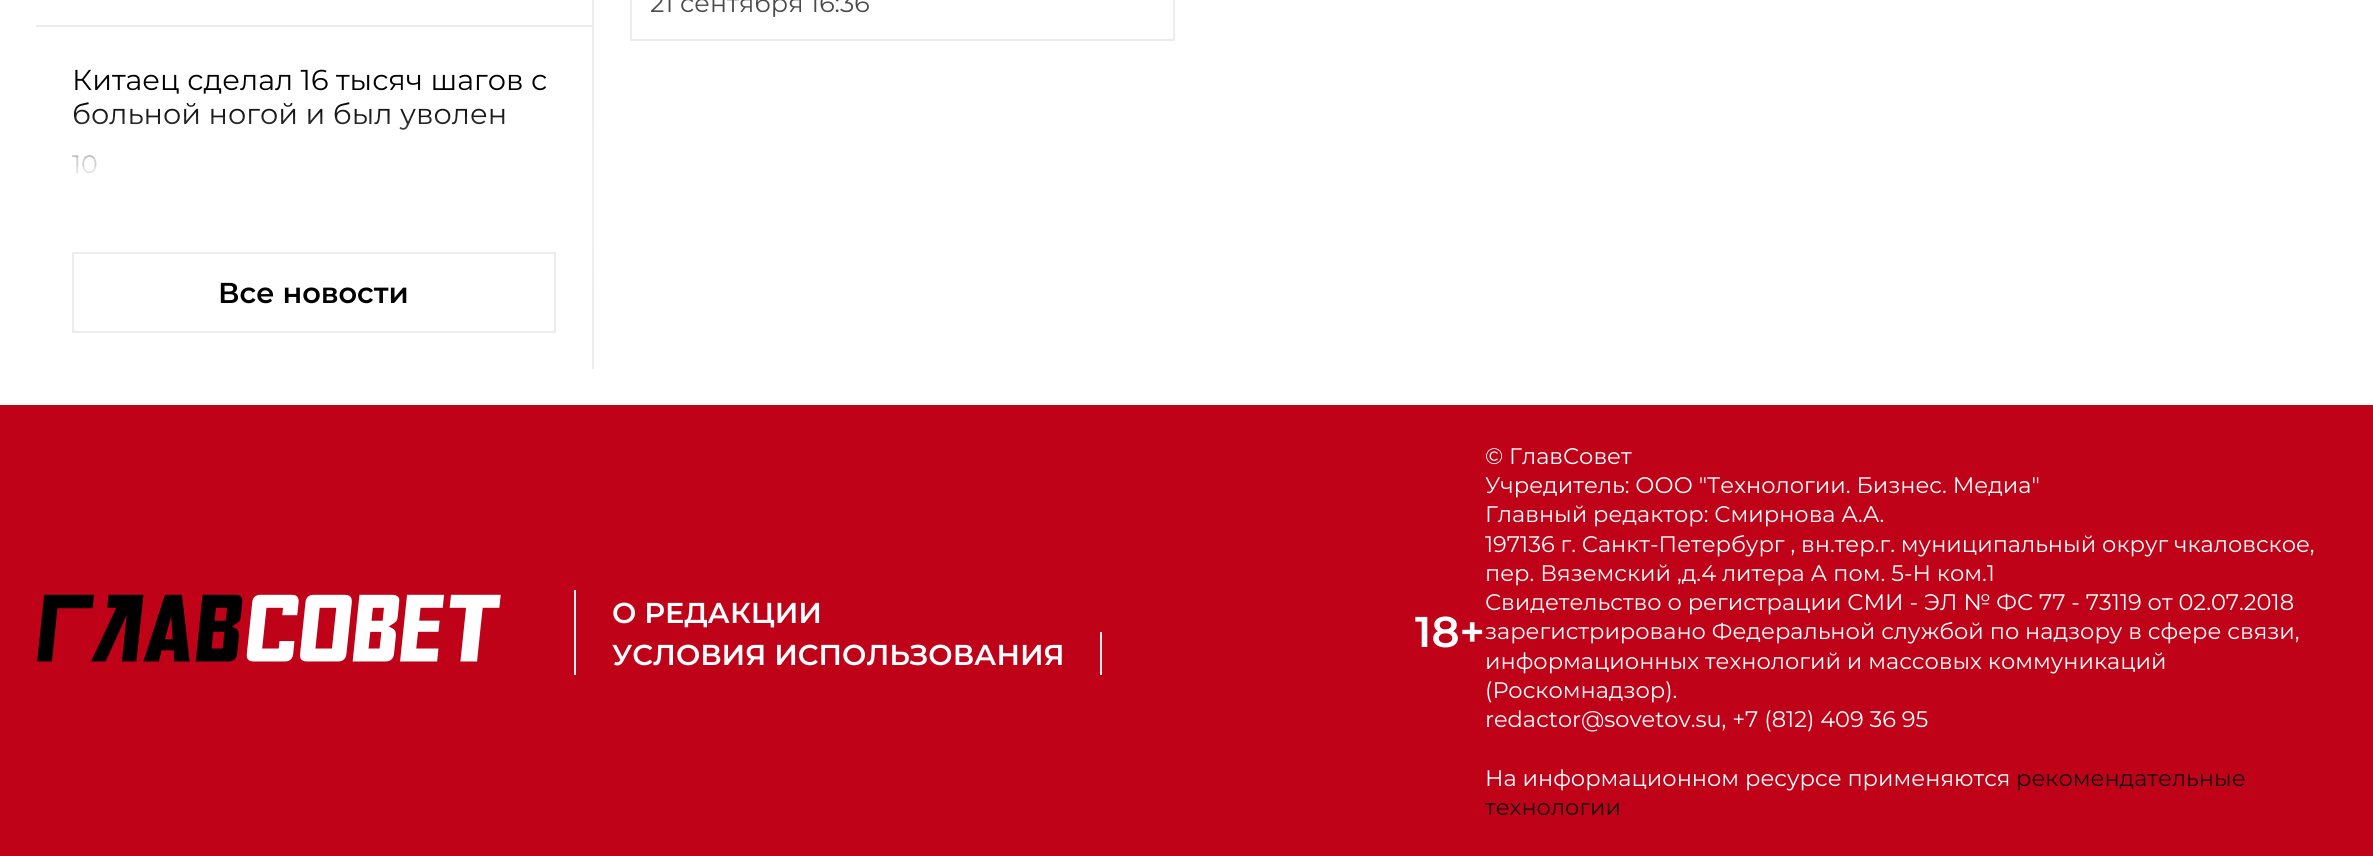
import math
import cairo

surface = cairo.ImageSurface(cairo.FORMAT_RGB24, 2373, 856)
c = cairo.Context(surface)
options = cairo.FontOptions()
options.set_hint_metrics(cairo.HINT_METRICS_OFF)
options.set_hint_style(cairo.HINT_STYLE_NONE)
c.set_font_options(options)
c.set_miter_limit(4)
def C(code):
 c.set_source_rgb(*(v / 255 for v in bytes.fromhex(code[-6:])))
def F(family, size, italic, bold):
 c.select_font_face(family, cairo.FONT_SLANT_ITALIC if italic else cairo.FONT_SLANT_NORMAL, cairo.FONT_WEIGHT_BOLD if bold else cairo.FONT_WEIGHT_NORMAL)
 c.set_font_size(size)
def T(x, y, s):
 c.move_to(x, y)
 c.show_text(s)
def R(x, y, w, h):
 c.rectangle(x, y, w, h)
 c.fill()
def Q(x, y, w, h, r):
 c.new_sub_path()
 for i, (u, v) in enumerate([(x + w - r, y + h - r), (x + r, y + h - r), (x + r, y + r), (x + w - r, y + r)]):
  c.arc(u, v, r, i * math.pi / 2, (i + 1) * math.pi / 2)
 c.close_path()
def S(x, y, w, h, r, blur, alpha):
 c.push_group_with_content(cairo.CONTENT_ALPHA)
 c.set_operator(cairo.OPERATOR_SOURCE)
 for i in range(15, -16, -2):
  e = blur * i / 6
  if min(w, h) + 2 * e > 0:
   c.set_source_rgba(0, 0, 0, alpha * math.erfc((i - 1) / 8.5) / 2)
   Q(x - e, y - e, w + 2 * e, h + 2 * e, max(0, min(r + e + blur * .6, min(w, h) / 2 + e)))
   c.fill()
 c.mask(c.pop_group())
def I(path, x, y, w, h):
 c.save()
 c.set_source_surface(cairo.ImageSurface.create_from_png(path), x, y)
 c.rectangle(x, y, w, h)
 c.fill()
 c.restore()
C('ffffff')
c.paint()
c.rectangle(631,-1,543,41)
C('ececec')
c.stroke()
F('Montserrat',25.25,0,0)
C('4a4a4a')
T(650,12,'21 сентября 16:36')
C('ececec')
R(592,0,2,369)
R(36,25,556,2)
F('Montserrat',28.75,0,0)
C('000000')
T(72,90,'Китаец сделал 16 тысяч шагов с')
T(72,124,'больной ногой и был уволен')
F('Montserrat',25.25,0,0)
C('4a4a4a')
T(72,173,'10')
c.save()
c.set_fill_rule(cairo.FILL_RULE_EVEN_ODD)
c.new_path()
c.move_to(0,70)
c.line_to(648,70)
c.line_to(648,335)
c.line_to(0,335)
c.close_path()
c.move_to(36,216)
c.line_to(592,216)
c.line_to(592,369)
c.line_to(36,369)
c.close_path()
c.clip()
C('ffffff')
S(56,146,516,113,0,25,1)
c.restore()
c.rectangle(73,253,482,79)
C('ececec')
c.stroke()
F('Montserrat SemiBold',28.75,0,0)
C('000000')
T(218,303,'Все новости')
C('c00219')
R(0,405,2373,451)
I('1.png',37,594,464,68)
C('ececec')
R(574,590,2,85)
C('ffffff')
T(612,623,'О РЕДАКЦИИ')
C('ececec')
R(1100,632,2,43)
C('ffffff')
T(612,665,'УСЛОВИЯ ИСПОЛЬЗОВАНИЯ')
F('Montserrat SemiBold',43,0,0)
T(1415,647,'18+')
F('Montserrat',22.5,0,0)
T(1485,464,'© ГлавСовет')
T(1485,493,'Учредитель: ООО "Технологии. Бизнес. Медиа"')
T(1485,522,'Главный редактор: Смирнова А.А.')
T(1485,552,'197136 г. Санкт-Петербург , вн.тер.г. муниципальный округ чкаловское,')
T(1485,581,'пер. Вяземский ,д.4 литера А пом. 5-Н ком.1')
T(1485,610,'Свидетельство о регистрации СМИ - ЭЛ № ФС 77 - 73119 от 02.07.2018')
T(1485,639,'зарегистрировано Федеральной службой по надзору в сфере связи,')
T(1485,669,'информационных технологий и массовых коммуникаций')
T(1485,698,'(Роскомнадзор).')
T(1485,727,'redactor@sovetov.su, +7 (812) 409 36 95')
T(1485,786,'На информационном ресурсе применяются')
C('111111')
T(2016,786,'рекомендательные')
T(1485,815,'технологии')
surface.write_to_png('o.png')
